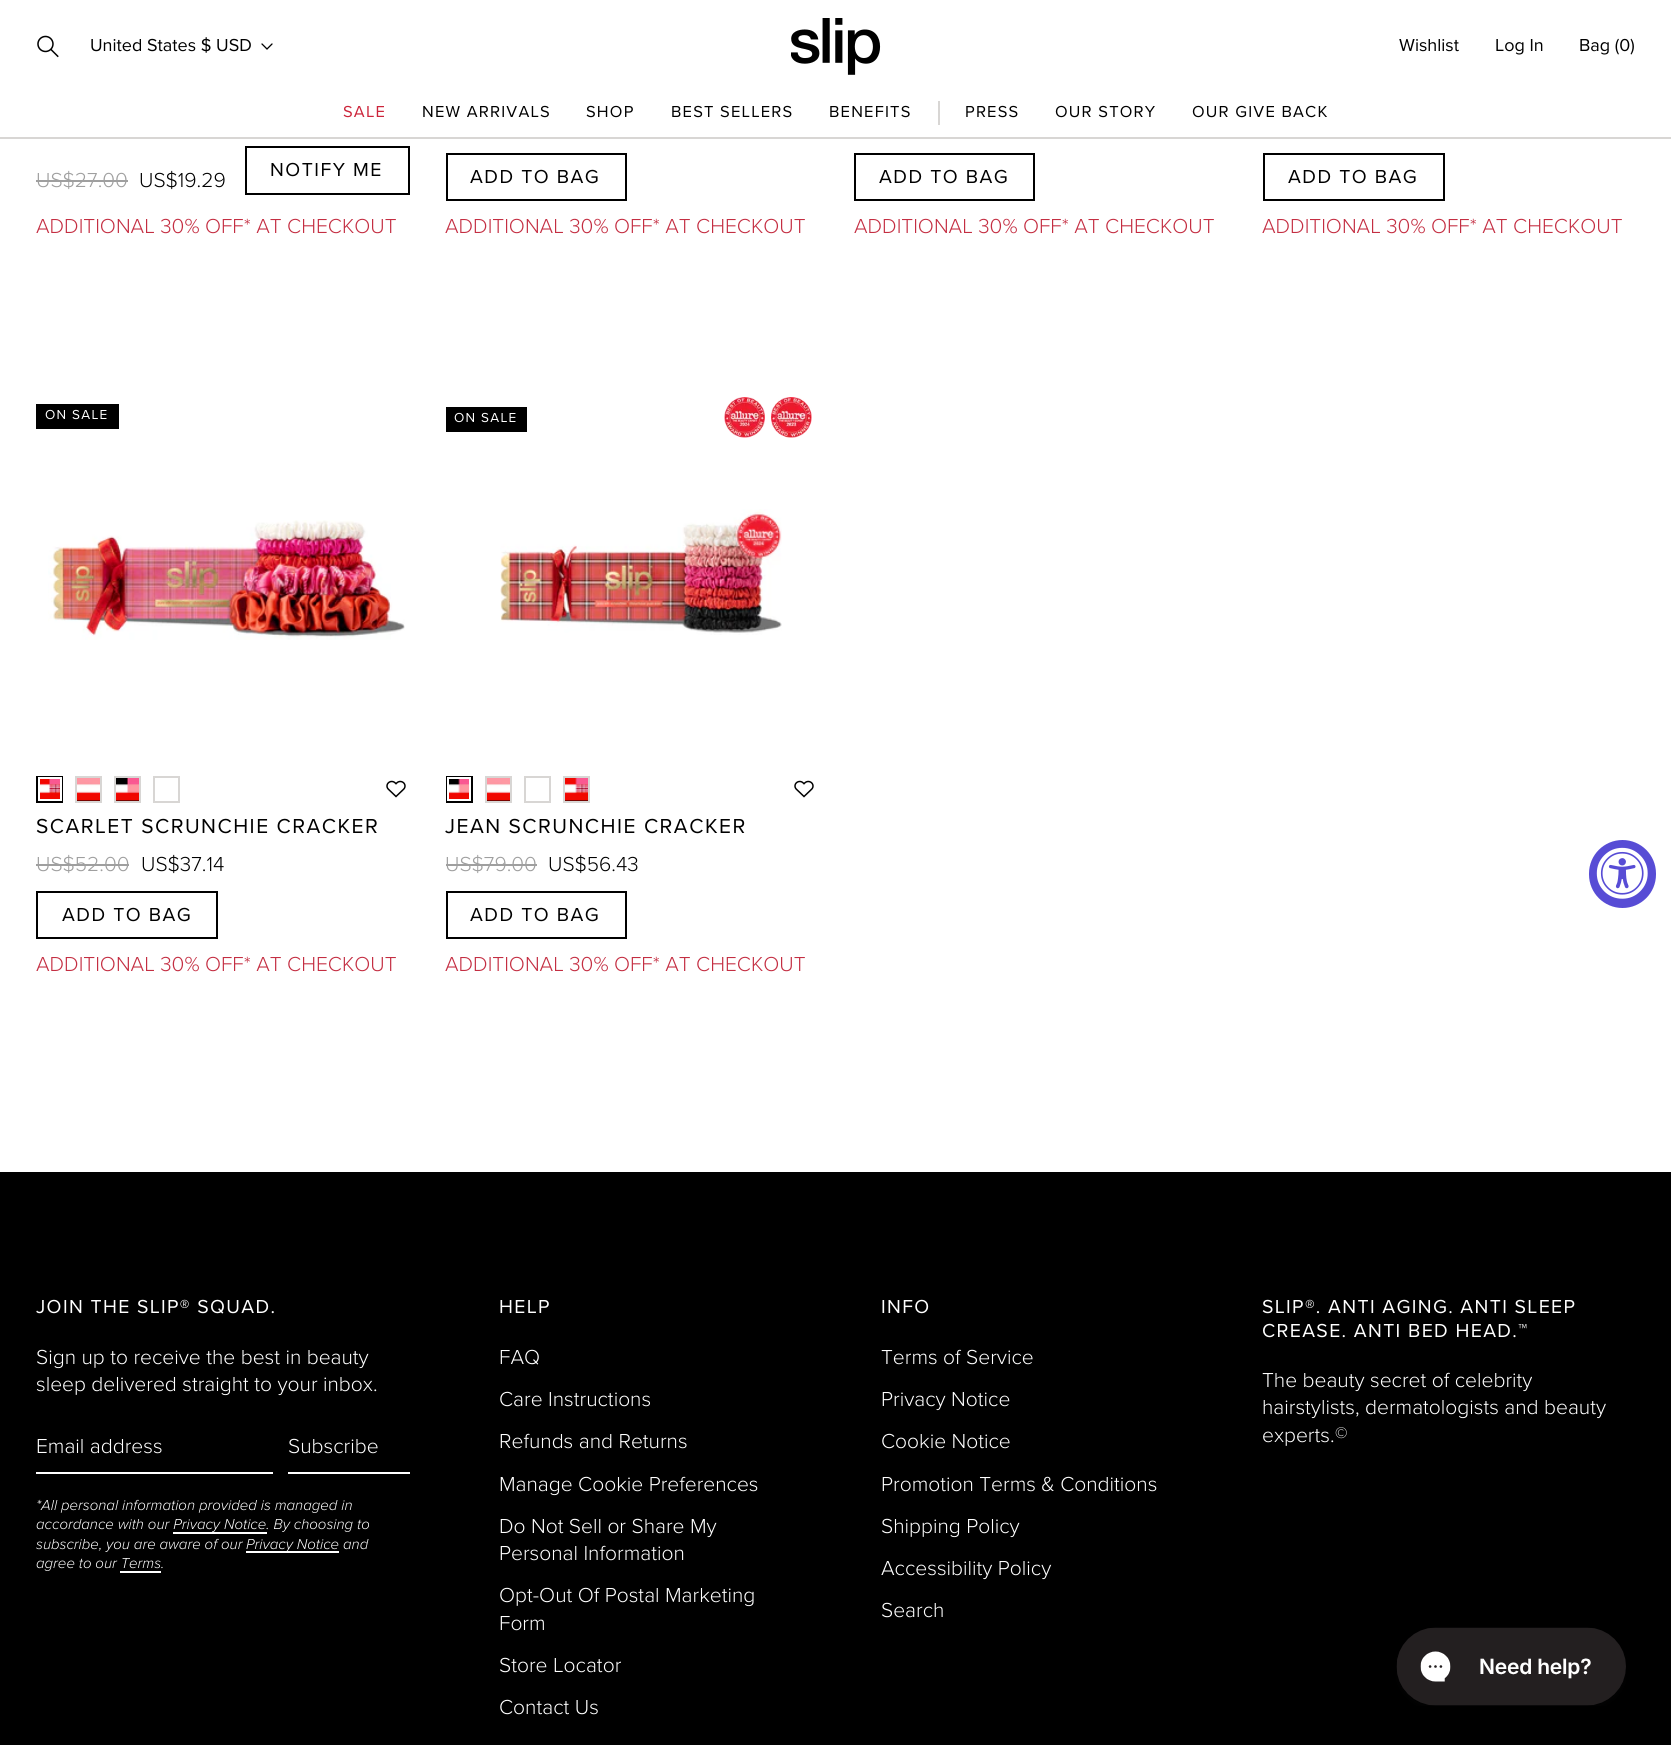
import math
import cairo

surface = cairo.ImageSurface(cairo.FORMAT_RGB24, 1671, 1745)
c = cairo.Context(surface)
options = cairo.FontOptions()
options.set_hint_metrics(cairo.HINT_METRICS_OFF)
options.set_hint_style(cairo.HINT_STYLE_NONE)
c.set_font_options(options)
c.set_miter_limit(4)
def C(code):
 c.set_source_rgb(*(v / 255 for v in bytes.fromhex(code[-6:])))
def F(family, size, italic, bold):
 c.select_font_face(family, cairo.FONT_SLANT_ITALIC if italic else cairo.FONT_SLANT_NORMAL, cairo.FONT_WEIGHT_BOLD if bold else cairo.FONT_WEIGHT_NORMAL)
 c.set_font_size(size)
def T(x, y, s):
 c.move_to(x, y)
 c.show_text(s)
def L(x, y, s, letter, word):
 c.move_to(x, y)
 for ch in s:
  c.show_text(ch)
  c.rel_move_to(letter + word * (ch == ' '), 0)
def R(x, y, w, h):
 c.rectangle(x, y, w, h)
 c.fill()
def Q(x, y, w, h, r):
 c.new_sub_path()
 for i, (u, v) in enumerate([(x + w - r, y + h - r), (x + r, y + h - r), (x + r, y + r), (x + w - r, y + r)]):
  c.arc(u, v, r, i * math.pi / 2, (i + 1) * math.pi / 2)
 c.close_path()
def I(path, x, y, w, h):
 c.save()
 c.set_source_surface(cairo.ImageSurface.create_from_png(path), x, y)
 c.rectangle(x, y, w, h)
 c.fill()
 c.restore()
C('ffffff')
c.paint()
C('d8d6d4')
R(0,137,1671,2)
I('1.png',37,35,22,23)
F('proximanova',18,0,0)
C('000000')
T(90,51,'United States $ USD')
c.new_path()
c.move_to(262,44)
c.line_to(267,49)
c.line_to(272,44)
c.set_line_width(1.3)
c.set_line_cap(cairo.LINE_CAP_ROUND)
c.stroke()
I('2.png',791,18,90,57)
T(1399,51,'Wishlist')
T(1495,51,'Log In')
T(1579,51,'Bag (0)')
F('proximanova',16.5,0,0)
C('cc243a')
L(343,117,'SALE',1.2,0)
C('000000')
L(422,117,'NEW ARRIVALS',1.2,0)
L(586,117,'SHOP',1.2,0)
L(671,117,'BEST SELLERS',1.2,0)
L(829,117,'BENEFITS',1.2,0)
C('d8d6d4')
R(938,101,2,24)
C('000000')
L(965,117,'PRESS',1.2,0)
L(1055,117,'OUR STORY',1.2,0)
L(1192,117,'OUR GIVE BACK',1.2,0)
F('Proxima Nova Light',21,0,0)
C('9f9f9f')
T(36,187,'US$27.00')
R(36,180,92,2)
C('000000')
T(139,187,'US$19.29')
c.rectangle(246,147,163,47)
c.set_line_width(2)
c.set_line_cap(cairo.LINE_CAP_BUTT)
c.stroke()
F('proximanova',19.5,0,0)
L(270,176,'NOTIFY ME',1.5,0)
F('Proxima Nova Light',21,0,0)
C('c42e42')
T(36,233,'ADDITIONAL 30% OFF* AT CHECKOUT')
c.rectangle(447,154,179,46)
C('000000')
c.stroke()
F('proximanova',19.5,0,0)
L(470,183,'ADD TO BAG',1.5,0)
F('Proxima Nova Light',21,0,0)
C('c42e42')
T(445,233,'ADDITIONAL 30% OFF* AT CHECKOUT')
c.rectangle(855,154,179,46)
C('000000')
c.stroke()
F('proximanova',19.5,0,0)
L(879,183,'ADD TO BAG',1.5,0)
F('Proxima Nova Light',21,0,0)
C('c42e42')
T(854,233,'ADDITIONAL 30% OFF* AT CHECKOUT')
c.rectangle(1264,154,180,46)
C('000000')
c.stroke()
F('proximanova',19.5,0,0)
L(1288,183,'ADD TO BAG',1.5,0)
F('Proxima Nova Light',21,0,0)
C('c42e42')
T(1262,233,'ADDITIONAL 30% OFF* AT CHECKOUT')
C('000000')
R(36,404,83,25)
F('proximanova',13.5,0,0)
C('ffffff')
L(45,419,'ON SALE',1.25,0)
I('3.png',48,520,357,120)
I('4.png',40,779,20,20)
c.rectangle(37,777,25,25)
C('000000')
c.stroke()
c.rectangle(39,778,22,22)
C('ffffff')
c.stroke()
C('000000')
R(77,800,23,1)
I('5.png',77,778,23,23)
c.rectangle(76,777,25,25)
C('d8d6d4')
c.stroke()
C('000000')
R(116,800,23,1)
I('6.png',116,778,23,23)
c.rectangle(115,777,25,25)
C('d8d6d4')
c.stroke()
c.rectangle(154,777,25,25)
c.stroke()
I('7.png',386,780,20,18)
F('proximanova',21,0,0)
C('000000')
L(36,833,'SCARLET SCRUNCHIE CRACKER',1.5,0)
F('Proxima Nova Light',21,0,0)
C('9f9f9f')
T(36,871,'US$52.00')
R(36,864,93,2)
C('000000')
T(141,871,'US$37.14')
c.rectangle(37,892,180,46)
c.stroke()
F('proximanova',19.5,0,0)
L(62,921,'ADD TO BAG',1.5,0)
F('Proxima Nova Light',21,0,0)
C('c42e42')
T(36,971,'ADDITIONAL 30% OFF* AT CHECKOUT')
C('000000')
R(446,407,81,25)
F('proximanova',13.5,0,0)
C('ffffff')
L(454,422,'ON SALE',1.25,0)
I('8.png',724,397,41,41)
I('9.png',771,397,41,41)
I('10.png',500,509,282,126)
I('11.png',449,779,20,20)
c.rectangle(447,777,25,25)
C('000000')
c.stroke()
c.rectangle(448,778,22,22)
C('ffffff')
c.stroke()
C('000000')
R(487,800,23,1)
I('12.png',487,778,23,23)
c.rectangle(486,777,25,25)
C('d8d6d4')
c.stroke()
c.rectangle(525,777,25,25)
c.stroke()
C('000000')
R(565,800,23,1)
I('13.png',565,778,23,23)
c.rectangle(564,777,25,25)
C('d8d6d4')
c.stroke()
I('7.png',794,780,20,18)
F('proximanova',21,0,0)
C('000000')
L(445,833,'JEAN SCRUNCHIE CRACKER',1.5,0)
F('Proxima Nova Light',21,0,0)
C('9f9f9f')
T(445,871,'US$79.00')
R(446,864,91,2)
C('000000')
T(548,871,'US$56.43')
c.rectangle(447,892,179,46)
c.stroke()
F('proximanova',19.5,0,0)
L(470,921,'ADD TO BAG',1.5,0)
F('Proxima Nova Light',21,0,0)
C('c42e42')
T(445,971,'ADDITIONAL 30% OFF* AT CHECKOUT')
C('574cd5')
Q(1589,840,67,68,33.5)
c.fill()
I('14.png',1596,847,52,52)
C('000000')
R(0,1172,1671,573)
F('proximanova',19.5,0,0)
C('ffffff')
L(36,1313,'JOIN THE SLIP® SQUAD.',1.35,0)
F('Proxima Nova Light',21,0,0)
T(36,1364,'Sign up to receive the best in beauty')
T(36,1391,'sleep delivered straight to your inbox.')
R(36,1472,237,2)
T(36,1453,'Email address')
R(288,1472,122,2)
T(288,1453,'Subscribe')
F('Proxima Nova Light',15,1,0)
T(36,1510,'*All personal information provided is managed in')
T(36,1529,'accordance with our Privacy Notice. By choosing to')
R(173,1532,94,2)
T(36,1549,'subscribe, you are aware of our')
R(246,1551,93,2)
T(246,1549,'Privacy Notice and')
T(36,1568,'agree to our Terms.')
R(120,1571,41,2)
F('proximanova',19.5,0,0)
L(499,1313,'HELP',1.35,0)
F('Proxima Nova Light',21,0,0)
T(499,1364,'FAQ')
T(499,1406,'Care Instructions')
T(499,1448,'Refunds and Returns')
T(499,1491,'Manage Cookie Preferences')
T(499,1533,'Do Not Sell or Share My')
T(499,1560,'Personal Information')
T(499,1602,'Opt-Out Of Postal Marketing')
T(499,1630,'Form')
T(499,1672,'Store Locator')
T(499,1714,'Contact Us')
F('proximanova',19.5,0,0)
L(881,1313,'INFO',1.35,0)
F('Proxima Nova Light',21,0,0)
T(881,1364,'Terms of Service')
T(881,1406,'Privacy Notice')
T(881,1448,'Cookie Notice')
T(881,1491,'Promotion Terms & Conditions')
T(881,1533,'Shipping Policy')
T(881,1575,'Accessibility Policy')
T(881,1617,'Search')
F('proximanova',19.5,0,0)
L(1262,1313,'SLIP®. ANTI AGING. ANTI SLEEP',1.35,0)
L(1262,1337,'CREASE. ANTI BED HEAD.™',1.35,0)
F('Proxima Nova Light',21,0,0)
T(1262,1387,'The beauty secret of celebrity')
T(1262,1414,'hairstylists, dermatologists and beauty')
T(1262,1442,'experts.')
F('Proxima Nova Light',16,0,0)
T(1335,1438,'©')
I('15.png',1396,1627,230,79)
surface.write_to_png('o.png')
